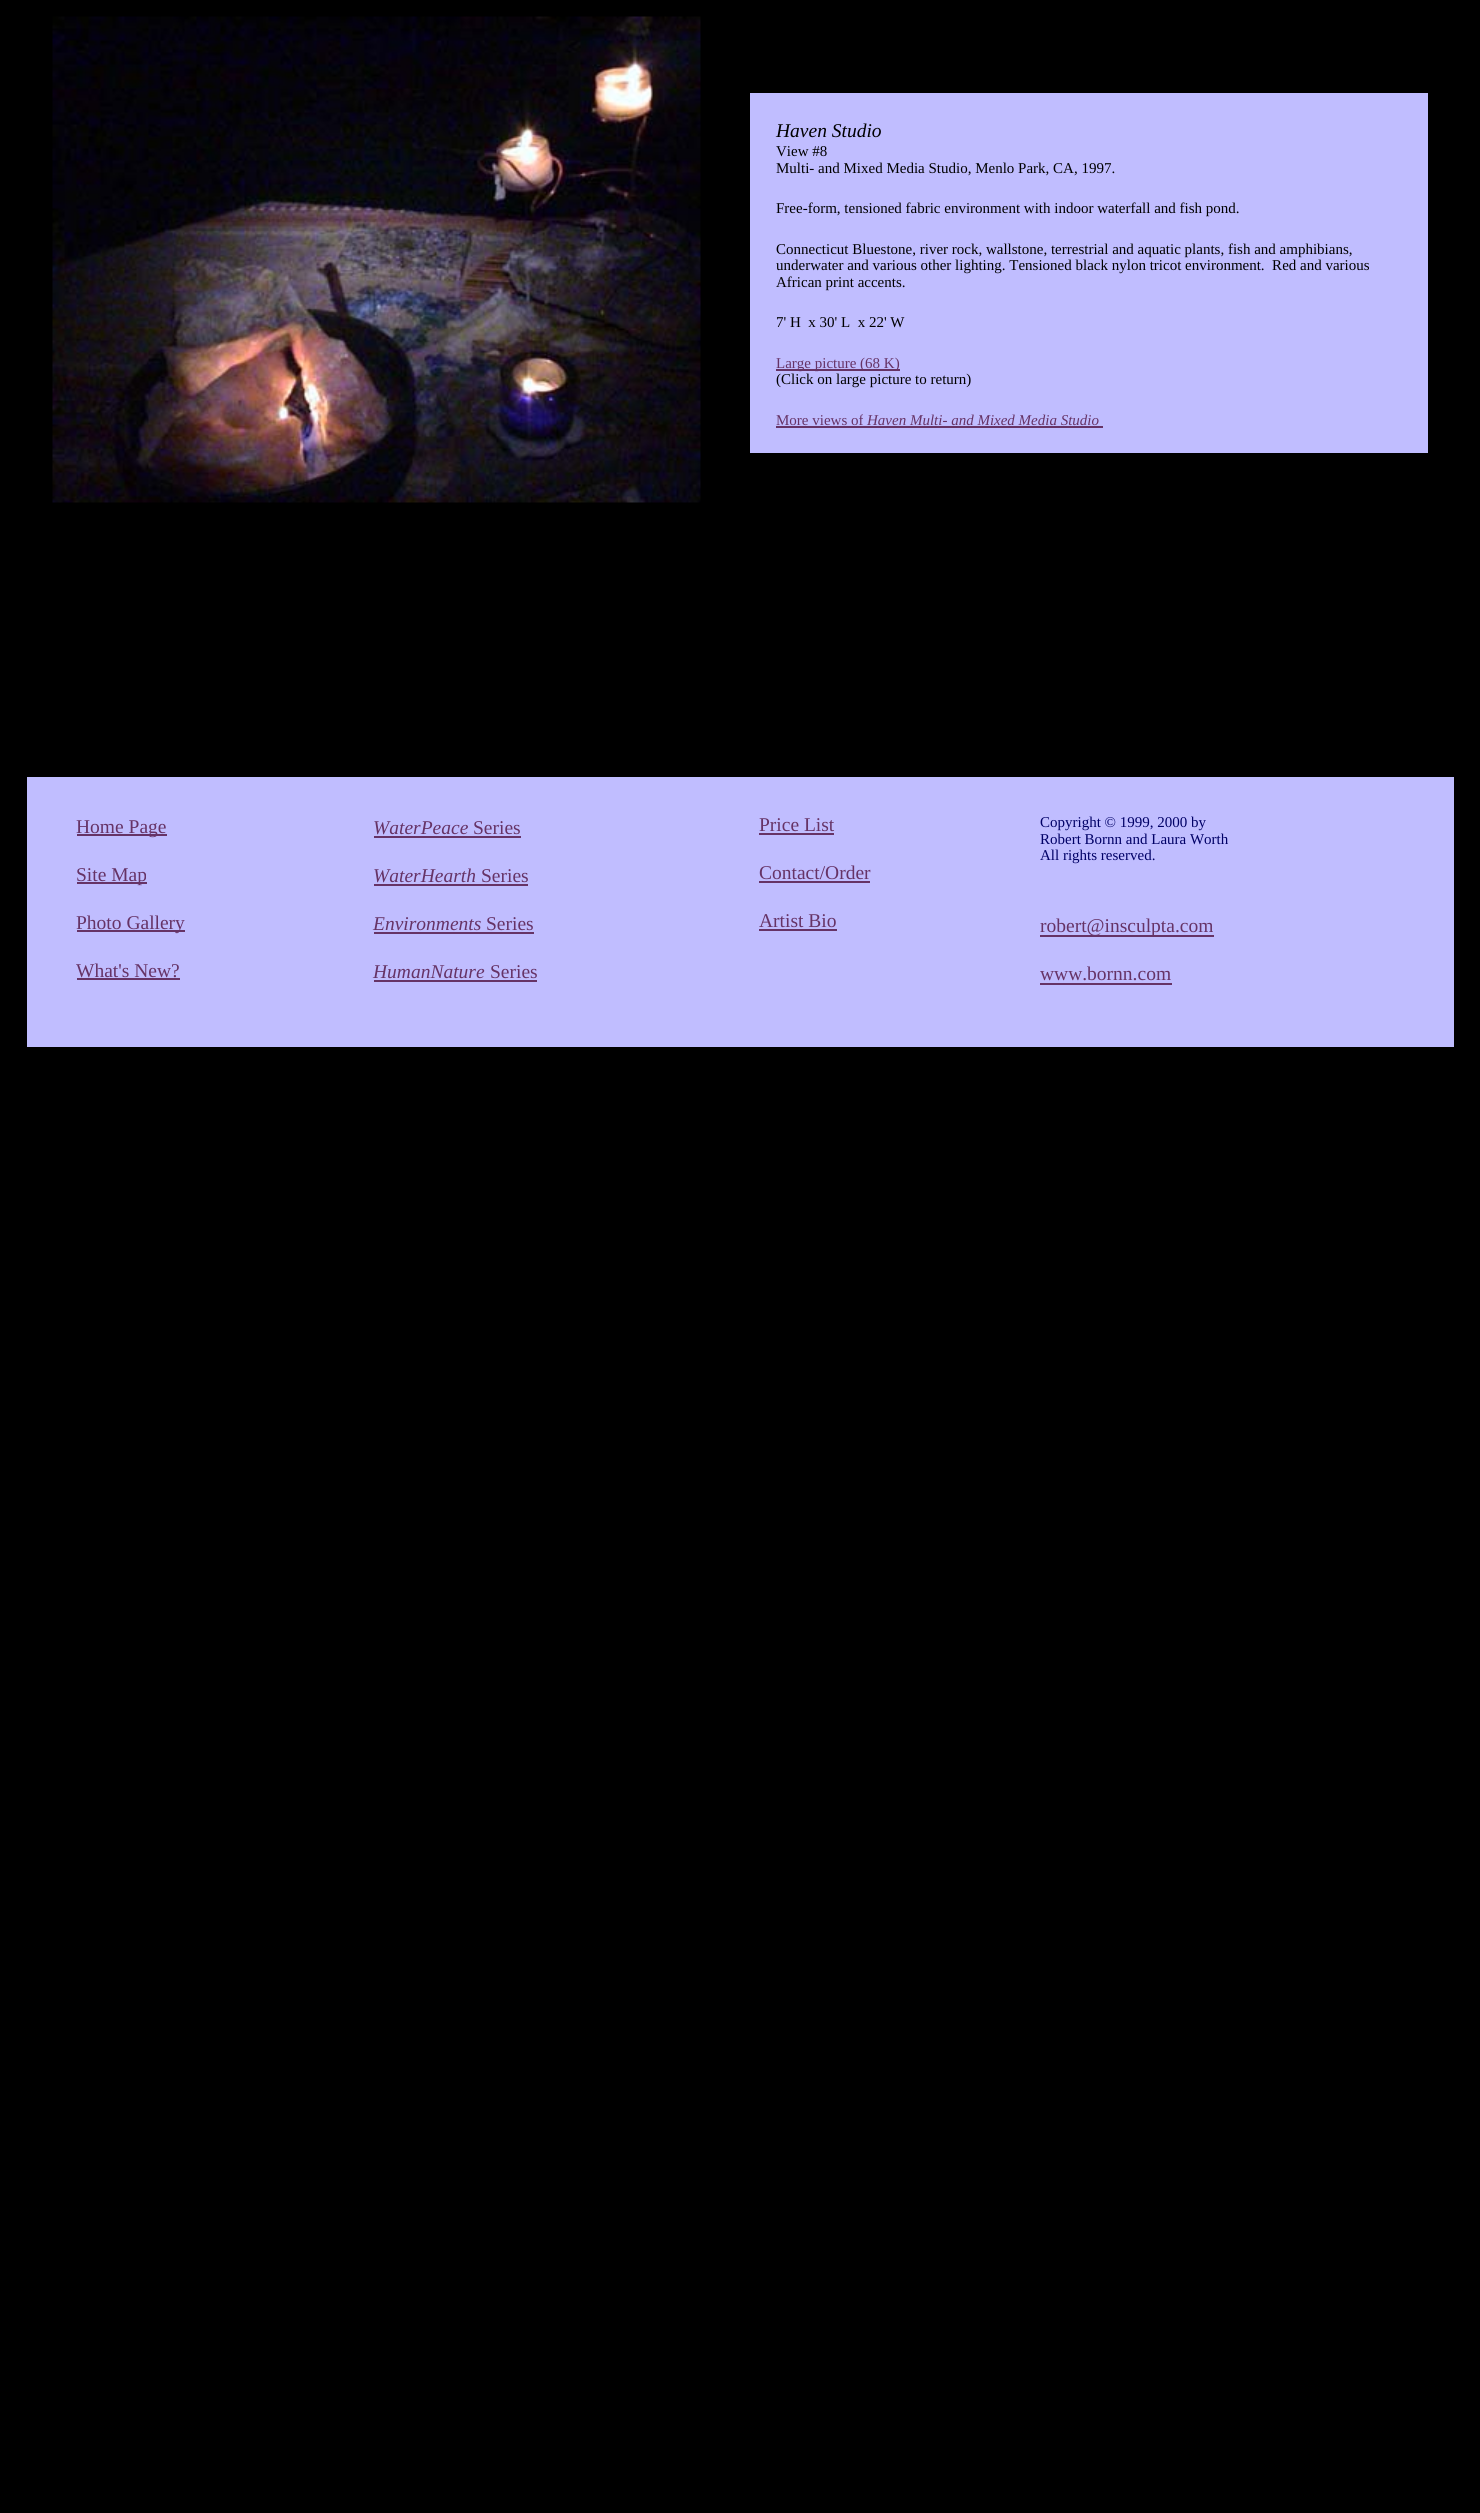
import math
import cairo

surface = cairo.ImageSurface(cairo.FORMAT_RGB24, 1480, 2513)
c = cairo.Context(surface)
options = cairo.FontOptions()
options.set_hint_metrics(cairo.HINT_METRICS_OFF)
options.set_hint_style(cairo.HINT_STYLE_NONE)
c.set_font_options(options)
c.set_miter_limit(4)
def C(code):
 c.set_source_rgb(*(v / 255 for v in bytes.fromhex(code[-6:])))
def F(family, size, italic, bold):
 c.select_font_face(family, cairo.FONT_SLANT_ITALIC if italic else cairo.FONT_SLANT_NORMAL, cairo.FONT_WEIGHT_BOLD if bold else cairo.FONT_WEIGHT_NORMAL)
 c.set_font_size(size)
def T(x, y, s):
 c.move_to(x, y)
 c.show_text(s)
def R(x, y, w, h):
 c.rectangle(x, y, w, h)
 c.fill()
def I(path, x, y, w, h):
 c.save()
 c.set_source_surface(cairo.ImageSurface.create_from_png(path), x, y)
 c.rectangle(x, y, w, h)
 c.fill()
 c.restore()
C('000000')
c.paint()
I('1.png',52,16,649,487)
C('c0bdff')
R(750,93,678,360)
F('Liberation Serif',19.5,1,0)
C('000000')
T(776,137,'Haven Studio')
F('Liberation Serif',15,0,0)
T(776,156,'View #8')
T(776,173,'Multi- and Mixed Media Studio, Menlo Park, CA, 1997.')
T(776,213,'Free-form, tensioned fabric environment with indoor waterfall and fish pond.')
T(776,254,'Connecticut Bluestone, river rock, wallstone, terrestrial and aquatic plants, fish and amphibians,')
T(776,270,'underwater and various other lighting. Tensioned black nylon tricot environment.  Red and various')
T(776,287,'African print accents.')
T(776,327,'7\' H  x 30\' L  x 22\' W')
C('663366')
R(776,369,124,2)
T(776,368,'Large picture (68 K)')
C('000000')
T(776,384,'(Click on large picture to return)')
C('663366')
T(776,425,'More views of')
R(776,426,327,2)
F('Liberation Serif',15,1,0)
T(867,425,'Haven Multi- and Mixed Media Studio')
C('c0bdff')
R(27,777,1427,270)
C('663366')
R(77,834,90,2)
F('Liberation Serif',19.5,0,0)
T(76,833,'Home Page')
R(77,882,70,2)
T(76,881,'Site Map')
R(77,930,108,2)
T(76,929,'Photo Gallery')
T(76,977,'What\'s New?')
R(77,978,103,2)
F('Liberation Serif',19.5,1,0)
T(373,834,'WaterPeace')
R(374,836,147,2)
F('Liberation Serif',19.5,0,0)
T(473,834,'Series')
F('Liberation Serif',19.5,1,0)
T(373,882,'WaterHearth')
F('Liberation Serif',19.5,0,0)
T(481,882,'Series')
R(374,884,154,2)
F('Liberation Serif',19.5,1,0)
T(373,930,'Environments')
R(374,932,160,2)
F('Liberation Serif',19.5,0,0)
T(486,930,'Series')
F('Liberation Serif',19.5,1,0)
T(373,978,'HumanNature')
R(374,980,163,2)
F('Liberation Serif',19.5,0,0)
T(490,978,'Series')
T(759,831,'Price List')
R(759,833,75,2)
T(759,879,'Contact/Order')
R(759,881,111,2)
T(759,927,'Artist Bio')
R(759,929,78,2)
F('Liberation Serif',15,0,0)
C('000066')
T(1040,827,'Copyright © 1999, 2000 by')
T(1040,844,'Robert Bornn and Laura Worth')
T(1040,860,'All rights reserved.')
C('663366')
R(1040,935,174,2)
F('Liberation Serif',19.5,0,0)
T(1040,932,'robert@insculpta.com')
T(1040,980,'www.bornn.com')
R(1040,983,132,2)
surface.write_to_png('o.png')
